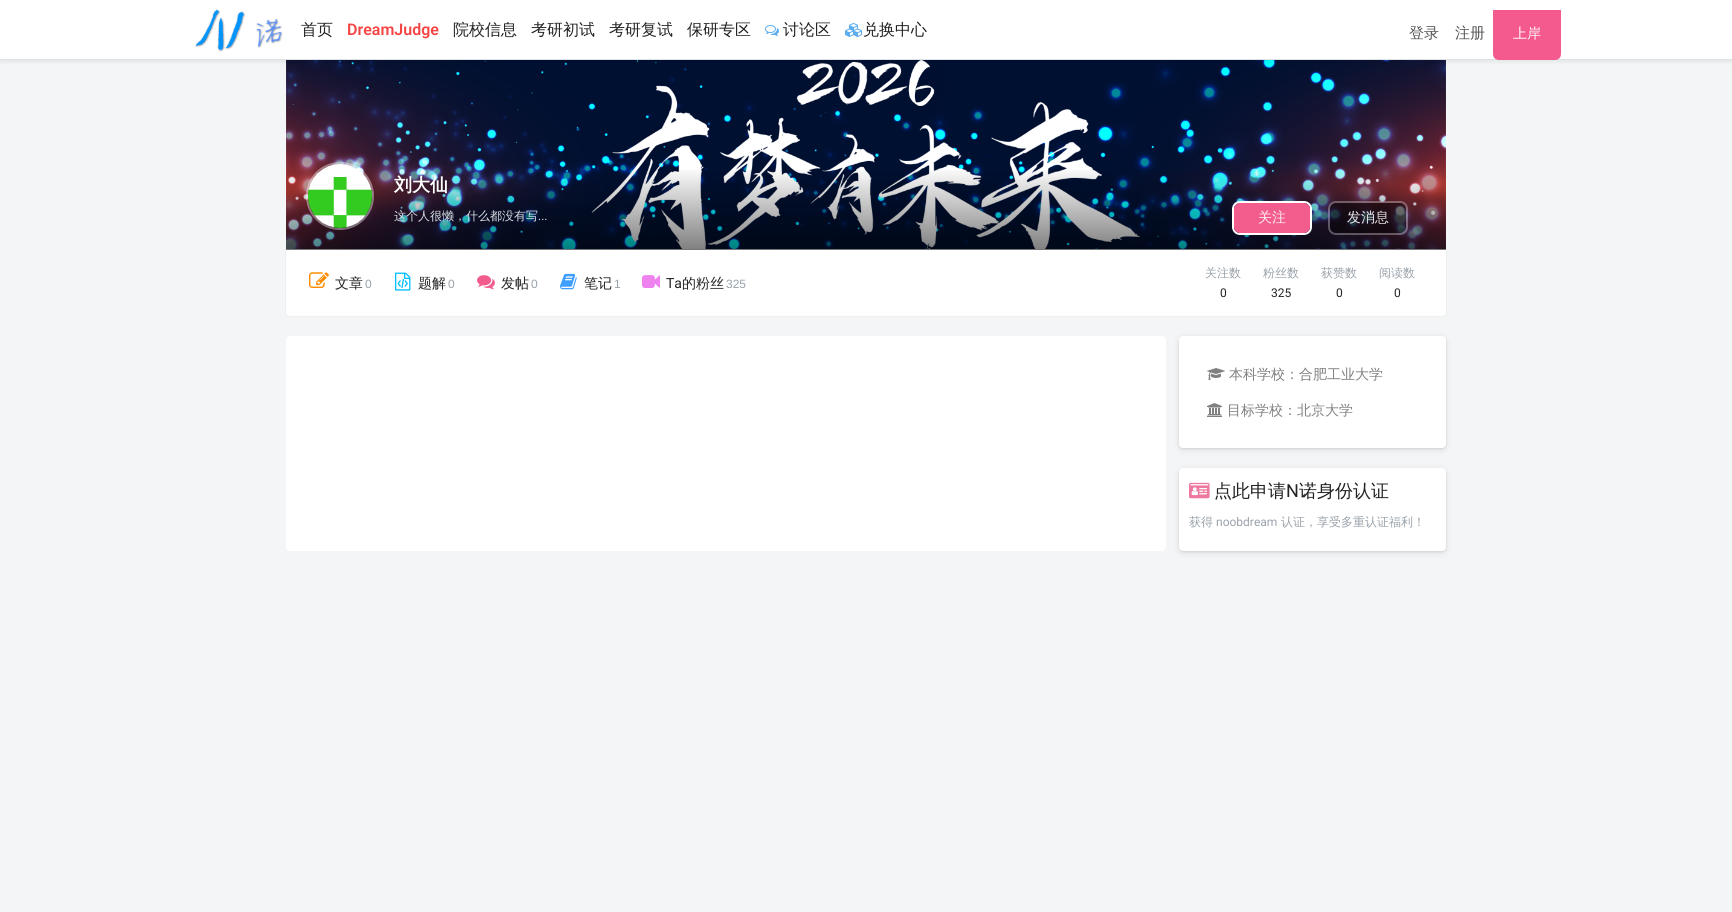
import math
import cairo

surface = cairo.ImageSurface(cairo.FORMAT_RGB24, 1732, 912)
c = cairo.Context(surface)
options = cairo.FontOptions()
options.set_hint_metrics(cairo.HINT_METRICS_OFF)
options.set_hint_style(cairo.HINT_STYLE_NONE)
c.set_font_options(options)
c.set_miter_limit(4)
def C(code):
 c.set_source_rgb(*(v / 255 for v in bytes.fromhex(code[-6:])))
def F(family, size, italic, bold):
 c.select_font_face(family, cairo.FONT_SLANT_ITALIC if italic else cairo.FONT_SLANT_NORMAL, cairo.FONT_WEIGHT_BOLD if bold else cairo.FONT_WEIGHT_NORMAL)
 c.set_font_size(size)
def T(x, y, s):
 c.move_to(x, y)
 c.show_text(s)
def R(x, y, w, h):
 c.rectangle(x, y, w, h)
 c.fill()
def Q(x, y, w, h, r):
 c.new_sub_path()
 for i, (u, v) in enumerate([(x + w - r, y + h - r), (x + r, y + h - r), (x + r, y + r), (x + w - r, y + r)]):
  c.arc(u, v, r, i * math.pi / 2, (i + 1) * math.pi / 2)
 c.close_path()
def S(x, y, w, h, r, blur, alpha):
 c.push_group_with_content(cairo.CONTENT_ALPHA)
 c.set_operator(cairo.OPERATOR_SOURCE)
 for i in range(15, -16, -2):
  e = blur * i / 6
  if min(w, h) + 2 * e > 0:
   c.set_source_rgba(0, 0, 0, alpha * math.erfc((i - 1) / 8.5) / 2)
   Q(x - e, y - e, w + 2 * e, h + 2 * e, max(0, min(r + e + blur * .6, min(w, h) / 2 + e)))
   c.fill()
 c.mask(c.pop_group())
def I(path, x, y, w, h):
 c.save()
 c.set_source_surface(cairo.ImageSurface.create_from_png(path), x, y)
 c.rectangle(x, y, w, h)
 c.fill()
 c.restore()
C('f4f5f7')
c.paint()
I('4.png',286,60,1160,189)
C('000000')
S(0,2,1732,60,0,2,.07)
C('ffffff')
R(0,0,1732,59)
C('dee2e6')
R(0,59,1732,1)
I('1.png',195,9,88,43)
F('WenQuanYi Zen Hei Medium',16,0,0)
C('222222')
T(301,35,'首页')
F('Roboto SemiBold',16,0,0)
C('f44444')
T(347,35,'DreamJudge')
F('WenQuanYi Zen Hei Medium',16,0,0)
C('222222')
T(453,35,'院校信息')
T(531,35,'考研初试')
T(609,35,'考研复试')
T(687,35,'保研专区')
I('2.png',765,25,14,11)
T(783,35,'讨论区')
I('3.png',845,23,17,14)
T(863,35,'兑换中心')
F('WenQuanYi Zen Hei Medium',15,0,0)
C('555555')
T(1409,38,'登录')
T(1455,38,'注册')
C('f45a8d')
c.new_path()
c.move_to(1493,10)
c.line_to(1561,10)
c.line_to(1561,54)
c.curve_to(1561,57.5,1558.5,60,1555,60)
c.line_to(1499,60)
c.curve_to(1495.5,60,1493,57.5,1493,54)
c.close_path()
c.fill()
F('WenQuanYi Zen Hei Medium',14,0,0)
C('ffffff')
T(1513,38,'上岸')
c.new_path()
c.move_to(285.5,249.5)
c.line_to(1446.5,249.5)
c.line_to(1446.5,312)
c.curve_to(1446.5,314.5,1444.5,316.5,1442,316.5)
c.line_to(290,316.5)
c.curve_to(287.5,316.5,285.5,314.5,285.5,312)
c.close_path()
C('eeeeee')
c.set_line_width(1)
c.stroke()
gradient = cairo.LinearGradient(866,166,866,250)
gradient.add_color_stop_rgba(0,0,0,0,0)
gradient.add_color_stop_rgba(1,0,0,0,.5)
c.set_source(gradient)
R(286,170,1160,80)
c.arc(340,196,33,0,2 * math.pi)
c.set_source_rgba(1,1,1,0.4)
c.set_line_width(2)
c.stroke()
I('5.png',308,164,64,64)
F('WenQuanYi Zen Hei',18,0,1)
C('ffffff')
T(394,191,'刘大仙')
F('WenQuanYi Zen Hei Medium',12,0,0)
C('d6dee4')
T(394,220,'这个人很懒，什么都没有写')
F('Roboto',12,0,0)
T(538,220,'...')
Q(1233,202,78,32,7)
C('ffffff')
c.stroke()
C('f25d8e')
Q(1234,203,76,30,6)
c.fill()
F('WenQuanYi Zen Hei Medium',14,0,0)
C('feeff4')
T(1258,222,'关注')
Q(1329,202,78,32,7)
c.set_source_rgba(1,1,1,0.3)
c.stroke()
c.set_source_rgba(0,0,0,0.45)
Q(1330,203,76,30,6)
c.fill()
C('e8e8e9')
T(1347,222,'发消息')
C('ffffff')
c.new_path()
c.move_to(286,250)
c.line_to(1446,250)
c.line_to(1446,312)
c.curve_to(1446,314,1444,316,1442,316)
c.line_to(290,316)
c.curve_to(288,316,286,314,286,312)
c.close_path()
c.fill()
I('6.png',309,272,20,16)
C('222222')
T(335,288,'文章')
F('Liberation Sans',12,0,0)
C('99a2aa')
T(365,288,'0')
I('7.png',395,272,16,19)
F('WenQuanYi Zen Hei Medium',14,0,0)
C('222222')
T(418,288,'题解')
F('Liberation Sans',12,0,0)
C('99a2aa')
T(448,288,'0')
I('8.png',477,275,18,15)
F('WenQuanYi Zen Hei Medium',14,0,0)
C('222222')
T(501,288,'发帖')
F('Liberation Sans',12,0,0)
C('99a2aa')
T(531,288,'0')
I('9.png',560,273,17,17)
F('WenQuanYi Zen Hei Medium',14,0,0)
C('222222')
T(584,288,'笔记')
F('Liberation Sans',12,0,0)
C('99a2aa')
T(614,288,'1')
I('10.png',642,275,18,13)
F('Roboto',14,0,0)
C('222222')
T(666,288,'Ta')
F('WenQuanYi Zen Hei Medium',14,0,0)
T(682,288,'的粉丝')
F('Liberation Sans',12,0,0)
C('99a2aa')
T(726,288,'325')
F('WenQuanYi Zen Hei Medium',12,0,0)
T(1205,277,'关注数')
F('Roboto',12,0,0)
C('222222')
T(1220,297,'0')
F('WenQuanYi Zen Hei Medium',12,0,0)
C('99a2aa')
T(1263,277,'粉丝数')
F('Roboto',12,0,0)
C('222222')
T(1271,297,'325')
F('WenQuanYi Zen Hei Medium',12,0,0)
C('99a2aa')
T(1321,277,'获赞数')
F('Roboto',12,0,0)
C('222222')
T(1336,297,'0')
F('WenQuanYi Zen Hei Medium',12,0,0)
C('99a2aa')
T(1379,277,'阅读数')
F('Roboto',12,0,0)
C('222222')
T(1394,297,'0')
C('ffffff')
Q(286,336,880,215,4)
c.fill()
C('000000')
S(1179,337,267,112,4,1,.1)
S(1179,338,267,112,4,4,.08)
C('ffffff')
Q(1179,336,267,112,4)
c.fill()
I('11.png',1207,368,18,12)
F('WenQuanYi Zen Hei Medium',14,0,0)
C('808080')
T(1229,379,'本科学校：合肥工业大学')
I('12.png',1207,403,15,14)
T(1227,415,'目标学校：北京大学')
C('000000')
S(1179,469,267,83,4,1,.1)
S(1179,470,267,83,4,4,.08)
C('ffffff')
Q(1179,468,267,83,4)
c.fill()
I('13.png',1189,482,21,17)
F('WenQuanYi Zen Hei Medium',18,0,0)
C('222222')
T(1214,497,'点此申请')
F('Roboto',18,0,0)
T(1286,497,'N')
F('WenQuanYi Zen Hei Medium',18,0,0)
T(1299,497,'诺身份认证')
F('WenQuanYi Zen Hei Medium',12,0,0)
C('99a2aa')
T(1189,526,'获得')
F('Roboto',12,0,0)
T(1216,526,'noobdream')
F('WenQuanYi Zen Hei Medium',12,0,0)
T(1281,526,'认证，享受多重认证福利！')
surface.write_to_png('o.png')
